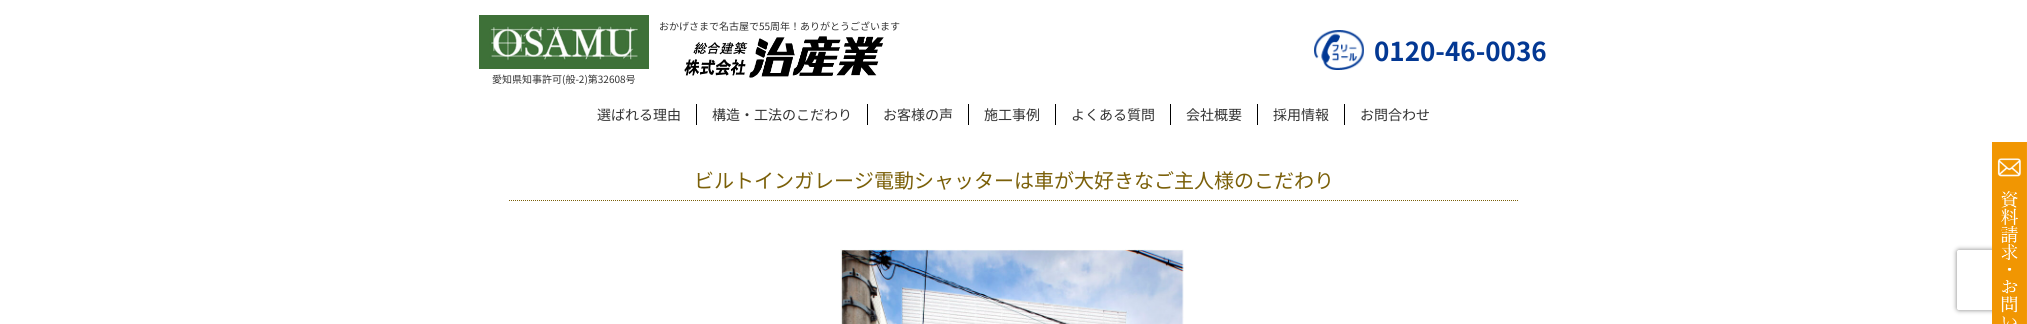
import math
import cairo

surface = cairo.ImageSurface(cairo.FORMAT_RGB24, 2027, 324)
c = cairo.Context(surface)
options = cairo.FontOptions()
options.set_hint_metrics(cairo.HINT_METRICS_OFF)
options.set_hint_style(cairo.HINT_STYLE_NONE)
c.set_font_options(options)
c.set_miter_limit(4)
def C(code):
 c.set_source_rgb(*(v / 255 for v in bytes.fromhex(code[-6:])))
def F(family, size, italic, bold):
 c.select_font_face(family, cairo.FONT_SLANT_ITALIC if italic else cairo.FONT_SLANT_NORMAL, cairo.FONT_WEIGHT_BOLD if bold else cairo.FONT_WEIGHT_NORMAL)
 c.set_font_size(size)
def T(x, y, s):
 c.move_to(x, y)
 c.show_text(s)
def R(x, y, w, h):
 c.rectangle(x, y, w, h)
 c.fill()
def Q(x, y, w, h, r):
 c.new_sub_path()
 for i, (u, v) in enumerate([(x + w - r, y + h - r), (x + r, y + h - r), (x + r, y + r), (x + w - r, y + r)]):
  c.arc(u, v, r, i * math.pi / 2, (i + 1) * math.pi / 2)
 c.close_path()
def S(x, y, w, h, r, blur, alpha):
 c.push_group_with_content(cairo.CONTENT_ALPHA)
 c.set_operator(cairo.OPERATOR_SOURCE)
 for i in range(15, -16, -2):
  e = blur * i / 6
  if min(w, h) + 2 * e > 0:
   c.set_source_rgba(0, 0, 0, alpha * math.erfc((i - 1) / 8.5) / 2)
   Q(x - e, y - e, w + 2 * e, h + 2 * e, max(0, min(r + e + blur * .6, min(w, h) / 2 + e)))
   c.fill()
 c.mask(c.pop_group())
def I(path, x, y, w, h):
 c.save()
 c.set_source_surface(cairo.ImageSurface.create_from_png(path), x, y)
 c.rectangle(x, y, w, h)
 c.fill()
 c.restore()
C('ffffff')
c.paint()
F('Noto Sans JP',10,0,0)
C('333333')
T(659,30,'おかげさまで名古屋で55周年！ありがとうございます')
I('1.png',684,36,200,42)
I('2.png',479,15,170,54)
T(492,83,'愛知県知事許可(般-2)第32608号')
I('3.png',1314,30,50,40)
F('Noto Sans JP',26,0,1)
C('033893')
T(1374,61,'0120-46-0036')
F('Noto Sans JP',14,0,0)
C('333333')
T(597,120,'選ばれる理由')
C('000000')
R(696,104,1,21)
C('333333')
T(712,120,'構造・工法のこだわり')
C('000000')
R(867,104,1,21)
C('333333')
T(883,120,'お客様の声')
C('000000')
R(968,104,1,21)
C('333333')
T(984,120,'施工事例')
C('000000')
R(1055,104,1,21)
C('333333')
T(1071,120,'よくある質問')
C('000000')
R(1170,104,1,21)
C('333333')
T(1186,120,'会社概要')
C('000000')
R(1257,104,1,21)
C('333333')
T(1273,120,'採用情報')
C('000000')
R(1344,104,1,21)
C('333333')
T(1360,120,'お問合わせ')
c.new_path()
c.move_to(509,200.5)
c.line_to(1519,200.5)
C('7b6009')
c.set_line_width(1)
c.set_dash([1,1])
c.stroke()
F('Noto Sans JP',20,0,0)
T(694,188,'ビルトインガレージ電動シャッターは車が大好きなご主人様のこだわり')
I('4.png',840,249,344,75)
c.save()
c.set_fill_rule(cairo.FILL_RULE_EVEN_ODD)
c.new_path()
c.move_to(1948,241)
c.line_to(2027,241)
c.line_to(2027,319)
c.line_to(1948,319)
c.close_path()
c.move_to(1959,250)
c.line_to(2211,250)
c.curve_to(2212,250,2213,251,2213,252)
c.line_to(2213,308)
c.curve_to(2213,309,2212,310,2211,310)
c.line_to(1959,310)
c.curve_to(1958,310,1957,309,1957,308)
c.line_to(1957,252)
c.curve_to(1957,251,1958,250,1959,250)
c.close_path()
c.clip()
C('808080')
S(1957,250,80,60,2,2.5,1)
c.restore()
I('5.png',1992,142,35,182)
surface.write_to_png('o.png')
